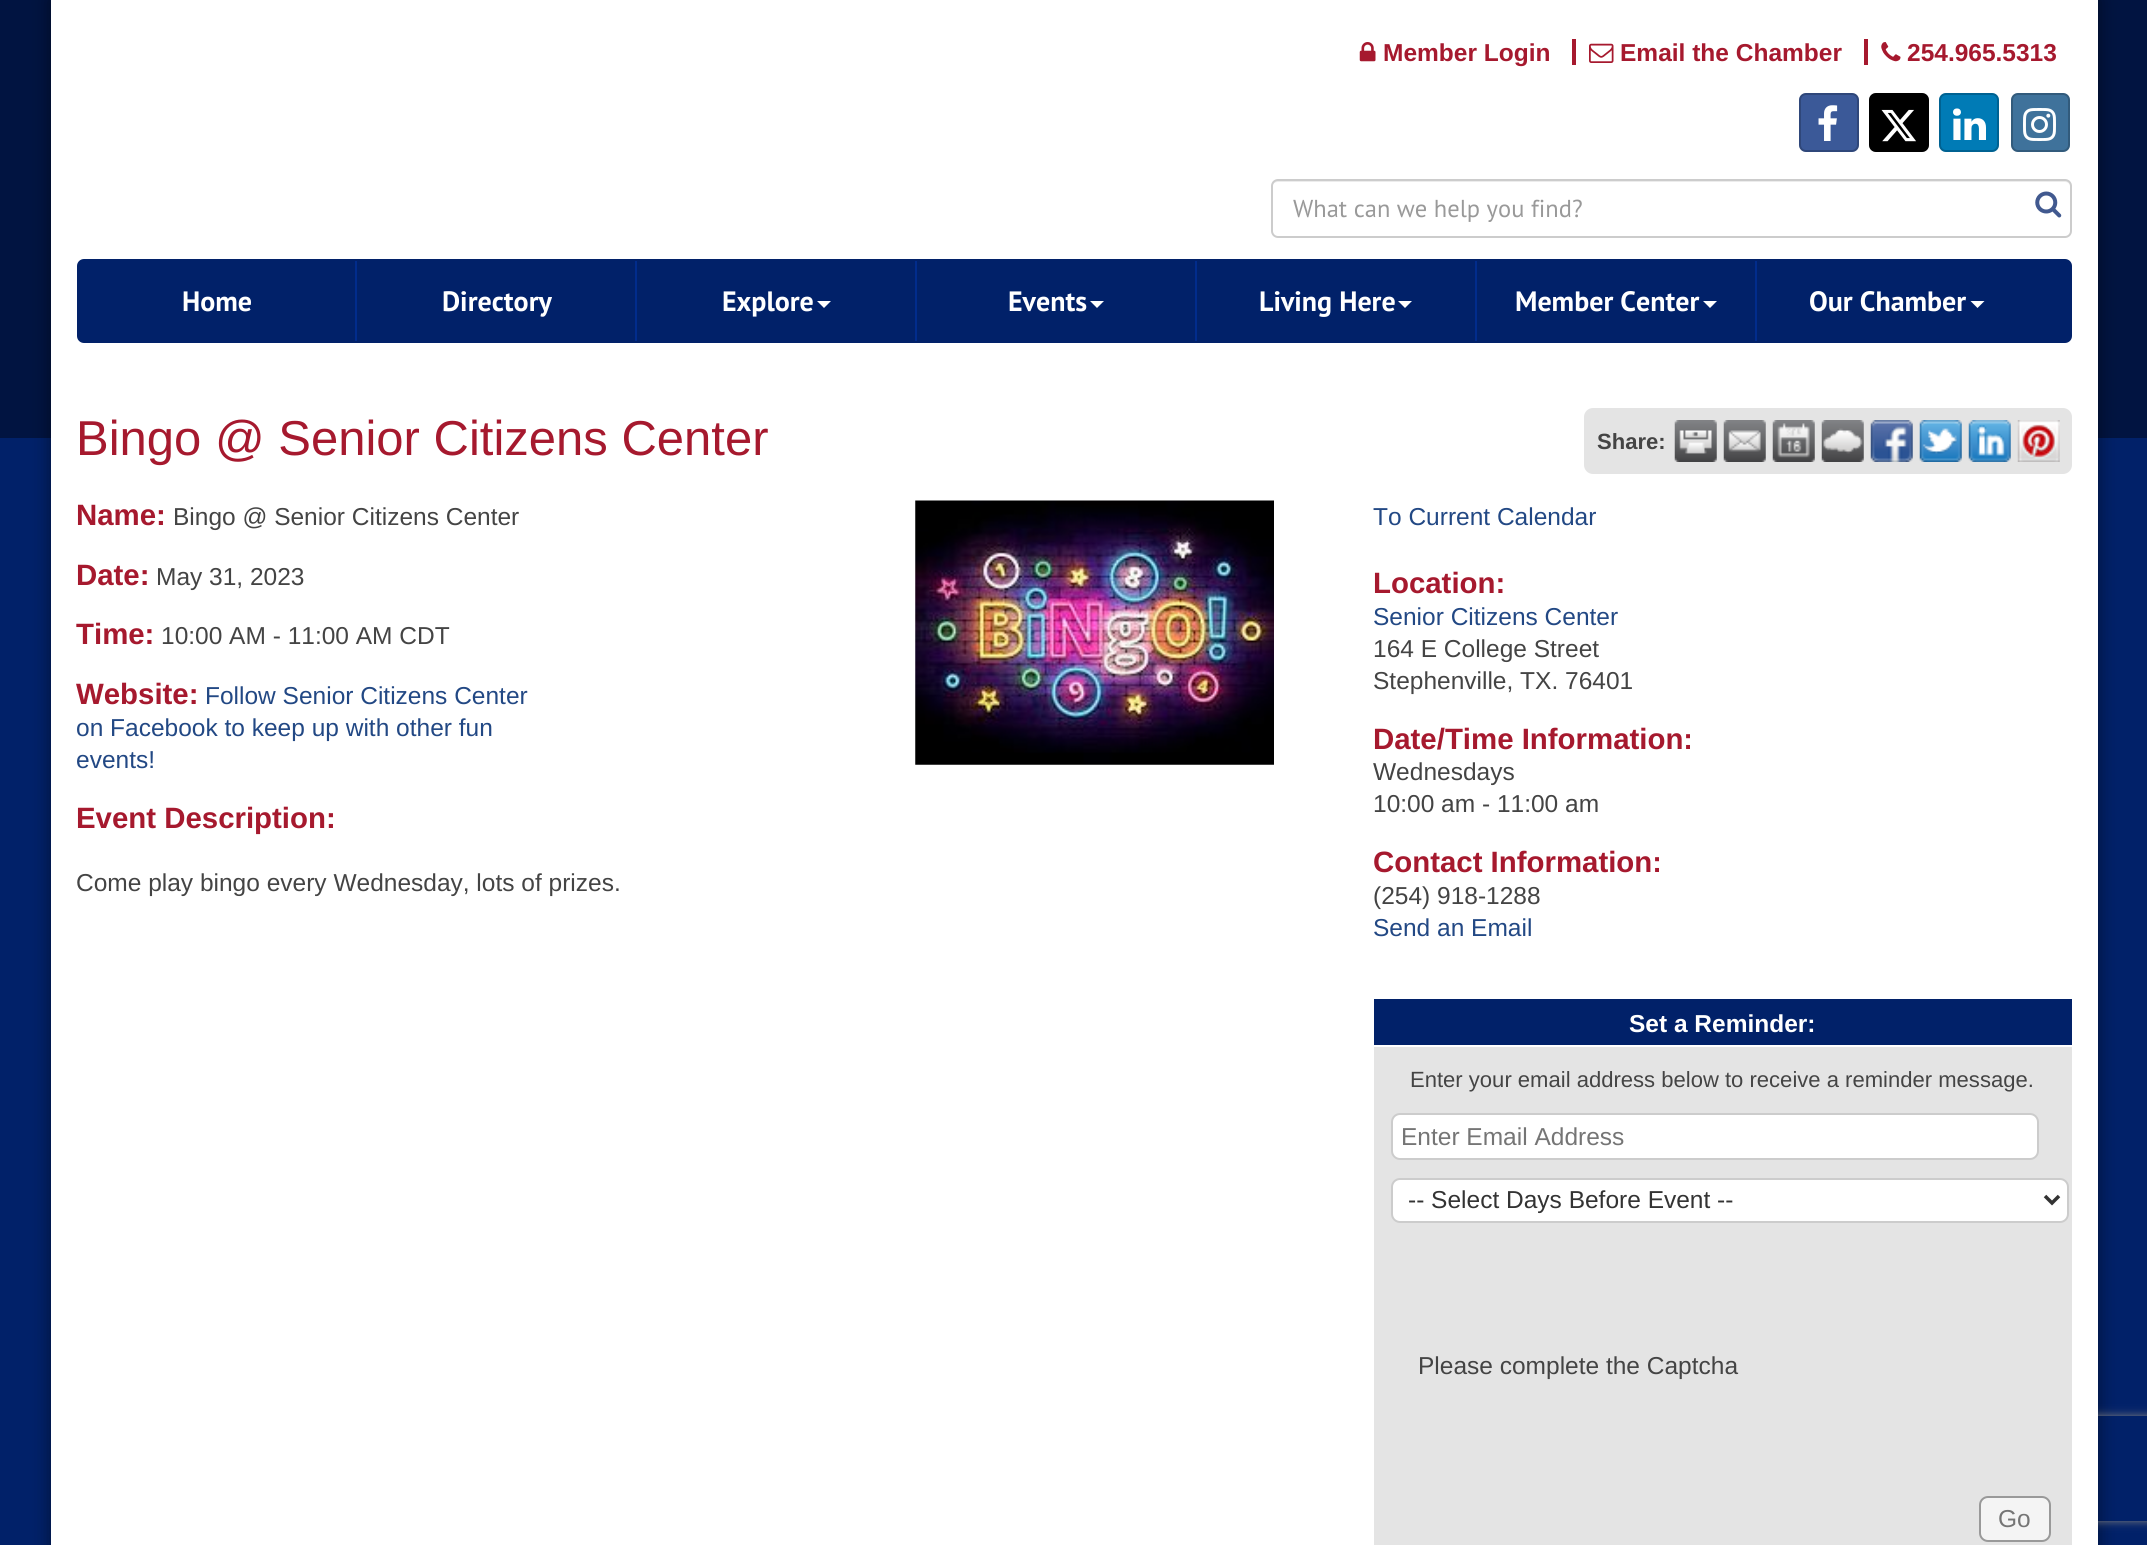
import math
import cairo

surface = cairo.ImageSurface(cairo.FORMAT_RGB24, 2147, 1545)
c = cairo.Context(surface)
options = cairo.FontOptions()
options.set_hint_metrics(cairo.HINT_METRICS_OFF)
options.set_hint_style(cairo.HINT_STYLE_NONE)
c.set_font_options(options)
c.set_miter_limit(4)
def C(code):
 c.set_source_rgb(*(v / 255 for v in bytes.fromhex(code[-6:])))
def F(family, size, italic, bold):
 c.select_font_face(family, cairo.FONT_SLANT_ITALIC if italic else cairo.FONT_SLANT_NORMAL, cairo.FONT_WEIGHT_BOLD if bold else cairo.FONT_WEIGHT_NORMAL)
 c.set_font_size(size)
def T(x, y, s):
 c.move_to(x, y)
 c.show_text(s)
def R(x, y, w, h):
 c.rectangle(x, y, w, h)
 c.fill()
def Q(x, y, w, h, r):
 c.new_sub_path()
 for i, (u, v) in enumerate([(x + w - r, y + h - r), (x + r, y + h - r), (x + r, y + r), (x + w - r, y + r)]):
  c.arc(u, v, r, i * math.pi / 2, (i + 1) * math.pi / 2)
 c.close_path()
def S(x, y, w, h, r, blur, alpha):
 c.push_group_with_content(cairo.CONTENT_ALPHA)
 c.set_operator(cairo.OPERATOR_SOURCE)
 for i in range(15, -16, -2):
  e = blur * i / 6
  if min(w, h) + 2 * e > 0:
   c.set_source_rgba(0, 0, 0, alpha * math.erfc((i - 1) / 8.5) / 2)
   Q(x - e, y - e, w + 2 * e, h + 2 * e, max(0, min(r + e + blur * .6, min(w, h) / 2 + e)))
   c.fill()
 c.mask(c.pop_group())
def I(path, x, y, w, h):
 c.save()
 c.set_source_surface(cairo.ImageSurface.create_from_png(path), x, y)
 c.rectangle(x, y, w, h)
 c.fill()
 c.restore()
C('012169')
c.paint()
C('011441')
R(0,0,2147,438)
C('000000')
S(51,0,2047,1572,0,9,.5)
c.save()
c.set_fill_rule(cairo.FILL_RULE_EVEN_ODD)
c.new_path()
c.move_to(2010,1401)
c.line_to(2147,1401)
c.line_to(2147,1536)
c.line_to(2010,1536)
c.close_path()
c.move_to(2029,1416)
c.line_to(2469,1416)
c.curve_to(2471,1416,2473,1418,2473,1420)
c.line_to(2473,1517)
c.curve_to(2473,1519,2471,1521,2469,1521)
c.line_to(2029,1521)
c.curve_to(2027,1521,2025,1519,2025,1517)
c.line_to(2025,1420)
c.curve_to(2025,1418,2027,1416,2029,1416)
c.close_path()
c.clip()
C('808080')
S(2025,1416,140,105,4,4.5,1)
c.restore()
C('ffffff')
R(51,0,2047,1545)
I('1.png',1359,42,17,20)
F('Liberation Sans',24.5,0,1)
C('a6192e')
T(1383,61,'Member Login')
R(1572,39,4,26)
I('2.png',1589,43,25,20)
T(1620,61,'Email the Chamber')
R(1864,39,4,26)
I('3.png',1881,42,20,20)
T(1907,61,'254.965.5313')
C('3b5998')
Q(1799,93,60,59,7)
c.fill()
Q(1800,94,58,57,6)
c.set_source_rgba(0,0,0,0.2)
c.stroke()
I('4.png',1818,105,20,36)
C('000000')
Q(1869,93,60,59,7)
c.fill()
Q(1870,94,58,57,6)
c.set_source_rgba(0,0,0,0.2)
c.stroke()
I('5.png',1881,109,35,33)
C('007bb6')
Q(1939,93,60,59,7)
c.fill()
Q(1940,94,58,57,6)
c.set_source_rgba(0,0,0,0.2)
c.stroke()
I('6.png',1953,108,33,32)
C('3f729b')
Q(2011,93,59,59,7)
c.fill()
Q(2012,94,57,57,6)
c.set_source_rgba(0,0,0,0.2)
c.stroke()
I('7.png',2023,108,33,33)
C('ececec')
c.new_path()
c.move_to(1278,182)
c.line_to(2065,182)
c.curve_to(2068,182,2070,184,2070,187)
c.curve_to(2070,184,2069,180,2065,180)
c.line_to(1277,180)
c.curve_to(1273,180,1272,184,1272,187)
c.curve_to(1272,184,1275,182,1278,182)
c.close_path()
c.fill()
Q(1272,180,799,57,6)
C('cccccc')
c.stroke()
F('PT Sans',24.5,0,0)
C('999999')
T(1293,217,'What can we help you find?')
I('8.png',2035,191,27,27)
C('012169')
Q(78,260,1993,82,6)
c.fill_preserve()
c.stroke()
C('012c8c')
R(355,261,2,80)
F('PT Sans',28,0,1)
C('ffffff')
T(182,311,'Home')
C('012c8c')
R(635,261,2,80)
C('ffffff')
T(442,311,'Directory')
C('012c8c')
R(915,261,2,80)
C('ffffff')
T(722,311,'Explore')
c.new_path()
c.move_to(817,301)
c.line_to(831,301)
c.line_to(824,308)
c.close_path()
c.fill()
C('012c8c')
R(1195,261,2,80)
C('ffffff')
T(1008,311,'Events')
c.new_path()
c.move_to(1090,301)
c.line_to(1104,301)
c.line_to(1097,308)
c.close_path()
c.fill()
C('012c8c')
R(1475,261,2,80)
C('ffffff')
T(1259,311,'Living Here')
c.new_path()
c.move_to(1398,301)
c.line_to(1412,301)
c.line_to(1405,308)
c.close_path()
c.fill()
C('012c8c')
R(1755,261,2,80)
C('ffffff')
T(1515,311,'Member Center')
c.new_path()
c.move_to(1703,301)
c.line_to(1717,301)
c.line_to(1710,308)
c.close_path()
c.fill()
T(1809,311,'Our Chamber')
c.new_path()
c.move_to(1970.5,301)
c.line_to(1984.5,301)
c.line_to(1977.5,308)
c.close_path()
c.fill()
F('Liberation Sans',49,0,0)
C('a6192e')
T(76,455,'Bingo @ Senior Citizens Center')
C('e4e4e4')
Q(1584,408,488,66,9)
c.fill()
F('Liberation Sans',22.05,0,1)
C('444444')
T(1597,449,'Share:')
I('9.png',1674,420,43,42)
I('10.png',1723,420,43,42)
I('11.png',1772,420,43,42)
I('12.png',1821,420,43,42)
I('13.png',1870,420,43,42)
I('14.png',1919,420,43,42)
I('15.png',1968,420,43,42)
I('16.png',2017,420,43,42)
F('Liberation Sans',29.4,0,1)
C('a6192e')
T(76,525,'Name:')
F('Liberation Sans',24.5,0,0)
C('444444')
T(173,525,'Bingo @ Senior Citizens Center')
F('Liberation Sans',29.4,0,1)
C('a6192e')
T(76,585,'Date:')
F('Liberation Sans',24.5,0,0)
C('444444')
T(156,585,'May 31, 2023')
F('Liberation Sans',29.4,0,1)
C('a6192e')
T(76,644,'Time:')
F('Liberation Sans',24.5,0,0)
C('444444')
T(161,644,'10:00 AM - 11:00 AM CDT')
F('Liberation Sans',29.4,0,1)
C('a6192e')
T(76,704,'Website:')
F('Liberation Sans',24.5,0,0)
C('224884')
T(205,704,'Follow Senior Citizens Center')
T(76,736,'on Facebook to keep up with other fun')
T(76,768,'events!')
I('17.png',915,500,359,265)
F('Liberation Sans',29.4,0,1)
C('a6192e')
T(76,828,'Event Description:')
F('Liberation Sans',24.5,0,0)
C('444444')
T(76,891,'Come play bingo every Wednesday, lots of prizes.')
C('224884')
T(1373,525,'To Current Calendar')
F('Liberation Sans',29.4,0,1)
C('a6192e')
T(1373,593,'Location:')
F('Liberation Sans',24.5,0,0)
C('224884')
T(1373,625,'Senior Citizens Center')
C('444444')
T(1373,657,'164 E College Street')
T(1373,689,'Stephenville, TX. 76401')
F('Liberation Sans',29.4,0,1)
C('a6192e')
T(1373,749,'Date/Time Information:')
F('Liberation Sans',24.5,0,0)
C('444444')
T(1373,780,'Wednesdays')
T(1373,812,'10:00 am - 11:00 am')
F('Liberation Sans',29.4,0,1)
C('a6192e')
T(1373,872,'Contact Information:')
F('Liberation Sans',24.5,0,0)
C('444444')
T(1373,904,'(254) 918-1288')
C('224884')
T(1373,936,'Send an Email')
C('e4e4e4')
R(1374,1047,698,498)
C('012169')
R(1374,999,698,46)
F('Liberation Sans',24.5,0,1)
C('ffffff')
T(1629,1032,'Set a Reminder:')
F('Liberation Sans',22.05,0,0)
C('444444')
T(1410,1087,'Enter your email address below to receive a reminder message.')
C('ffffff')
Q(1392,1114,646,45,8)
c.fill_preserve()
C('cccccc')
c.stroke()
F('Liberation Sans',24.5,0,0)
C('757575')
T(1401,1145,'Enter Email Address')
C('ffffff')
Q(1392,1179,676,43,8)
c.fill_preserve()
C('cccccc')
c.stroke()
c.new_path()
c.move_to(2045,1196)
c.line_to(2052,1203)
c.line_to(2059,1196)
C('333333')
c.set_line_width(3.5)
c.stroke()
T(1408,1208,'-- Select Days Before Event --')
C('444444')
T(1418,1374,'Please complete the Captcha')
C('f4f4f4')
Q(1980,1497,70,44,8)
c.fill_preserve()
C('999999')
c.set_line_width(2)
c.stroke()
C('757575')
T(1998,1527,'Go')
surface.write_to_png('o.png')
